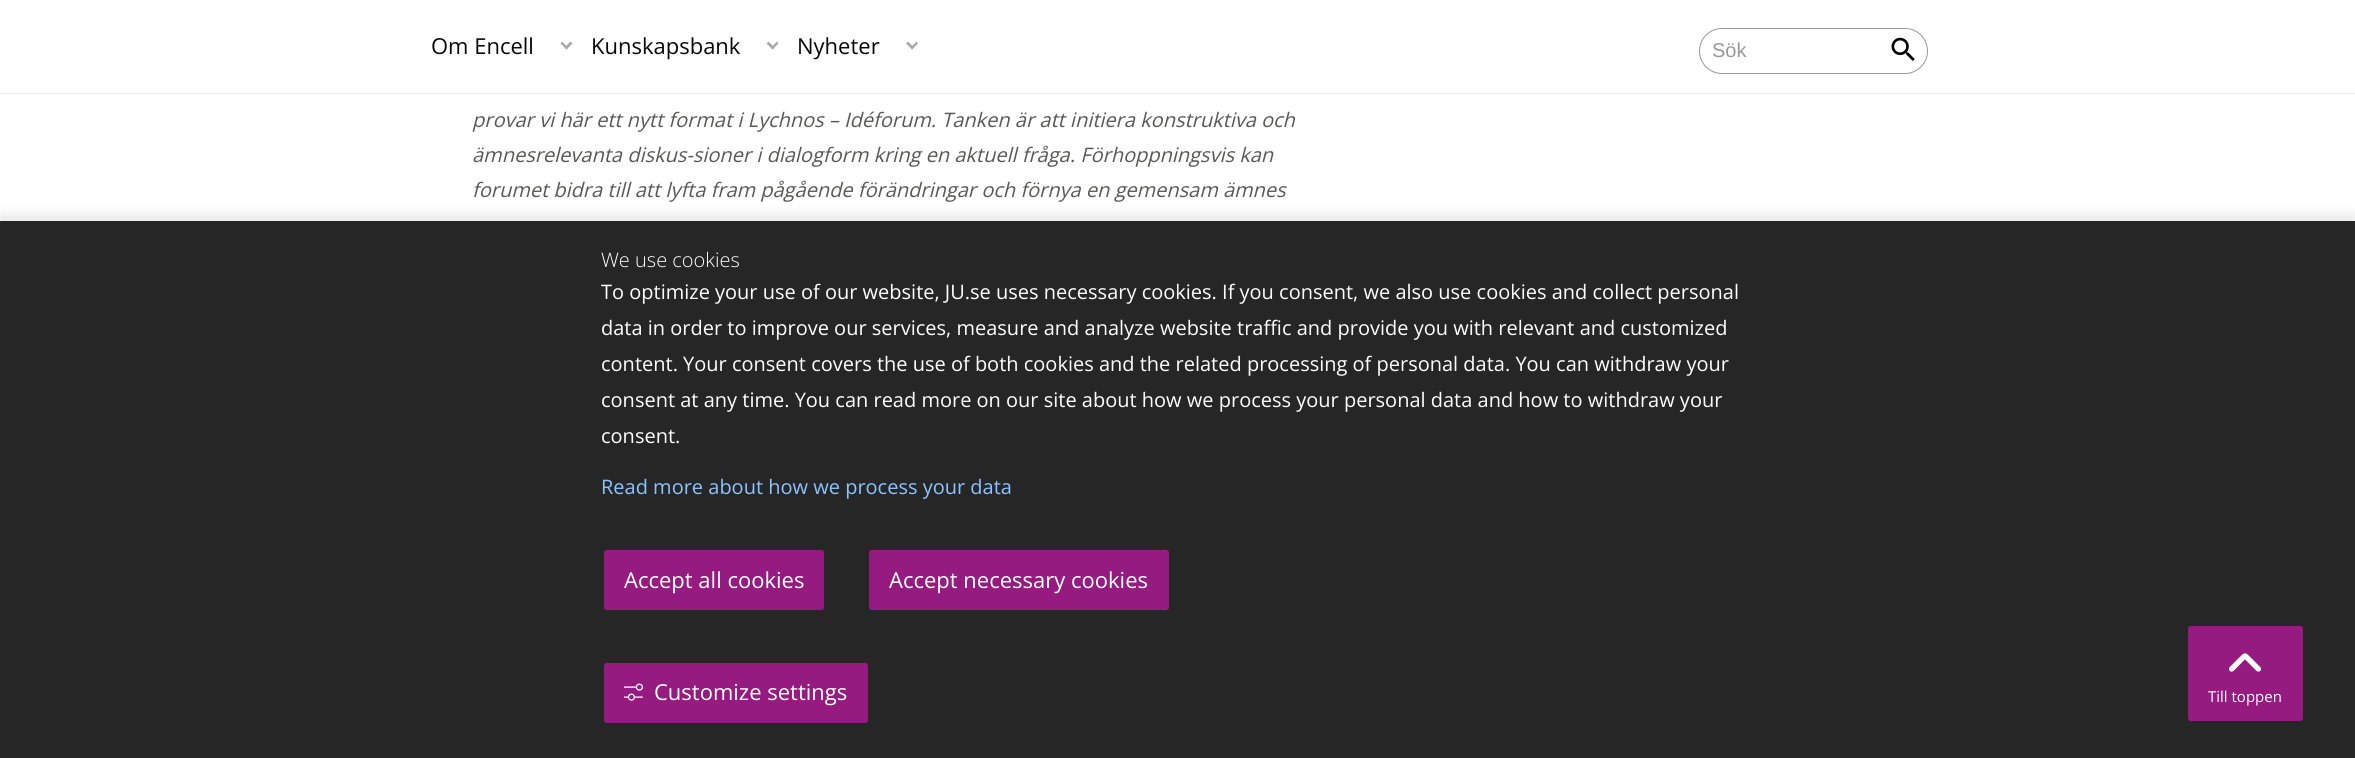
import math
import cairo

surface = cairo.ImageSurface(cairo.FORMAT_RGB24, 2355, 758)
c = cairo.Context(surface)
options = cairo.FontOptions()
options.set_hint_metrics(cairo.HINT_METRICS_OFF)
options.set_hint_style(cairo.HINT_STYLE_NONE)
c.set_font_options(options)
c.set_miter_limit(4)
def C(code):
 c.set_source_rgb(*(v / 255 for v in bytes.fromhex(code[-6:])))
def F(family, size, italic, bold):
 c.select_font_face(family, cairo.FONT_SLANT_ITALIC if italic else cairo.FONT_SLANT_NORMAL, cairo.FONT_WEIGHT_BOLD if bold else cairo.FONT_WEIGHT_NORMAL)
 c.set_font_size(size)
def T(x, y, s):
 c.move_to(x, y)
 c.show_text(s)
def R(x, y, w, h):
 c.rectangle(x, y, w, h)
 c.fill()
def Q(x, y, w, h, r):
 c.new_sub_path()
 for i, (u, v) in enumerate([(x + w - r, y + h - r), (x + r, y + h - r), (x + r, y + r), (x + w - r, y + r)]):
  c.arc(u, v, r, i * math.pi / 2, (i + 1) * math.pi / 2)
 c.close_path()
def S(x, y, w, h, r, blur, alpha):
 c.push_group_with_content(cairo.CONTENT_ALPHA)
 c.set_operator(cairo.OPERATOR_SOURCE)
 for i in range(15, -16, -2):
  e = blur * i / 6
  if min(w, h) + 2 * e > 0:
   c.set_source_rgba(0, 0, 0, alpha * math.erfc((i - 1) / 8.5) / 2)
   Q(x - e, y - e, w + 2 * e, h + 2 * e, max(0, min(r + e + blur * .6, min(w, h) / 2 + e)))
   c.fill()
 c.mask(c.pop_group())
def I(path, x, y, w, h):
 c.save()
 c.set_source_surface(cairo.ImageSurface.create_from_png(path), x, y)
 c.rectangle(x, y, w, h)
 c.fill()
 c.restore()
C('ffffff')
c.paint()
C('ececec')
R(0,93,2355,1)
F('Open Sans',22,0,0)
C('070707')
T(431,54,'Om Encell')
C('aaaaaa')
c.new_path()
c.move_to(564.5,47.5)
c.line_to(570.5,41.5)
c.line_to(572.5,43.5)
c.line_to(566.5,49.5)
c.close_path()
c.fill()
c.new_path()
c.move_to(560.5,43.5)
c.line_to(562,41.5)
c.line_to(568,47.5)
c.line_to(566.5,49.5)
c.close_path()
c.fill()
C('070707')
T(591,54,'Kunskapsbank')
C('aaaaaa')
c.new_path()
c.move_to(771,47.5)
c.line_to(777,41.5)
c.line_to(778.5,43.5)
c.line_to(772.5,49.5)
c.close_path()
c.fill()
c.new_path()
c.move_to(766.5,43.5)
c.line_to(768.5,41.5)
c.line_to(774.5,47.5)
c.line_to(772.5,49.5)
c.close_path()
c.fill()
C('070707')
T(797,54,'Nyheter')
C('aaaaaa')
c.new_path()
c.move_to(910.5,47.5)
c.line_to(916.5,41.5)
c.line_to(918,43.5)
c.line_to(912,49.5)
c.close_path()
c.fill()
c.new_path()
c.move_to(906,43.5)
c.line_to(908,41.5)
c.line_to(914,47.5)
c.line_to(912,49.5)
c.close_path()
c.fill()
Q(1699.5,28.5,228,45,22.5)
C('989898')
c.set_line_width(1)
c.stroke()
F('Liberation Sans',20,0,0)
T(1712,57,'Sök')
C('ffffff')
c.new_path()
c.arc(1904,49,20,0,2 * math.pi)
c.fill()
I('1.png',1891,37,24,24)
F('Open Sans',20,1,0)
C('585857')
T(472,127,'provar vi här ett nytt format i Lychnos – Idéforum. Tanken är att initiera konstruktiva och')
T(472,162,'ämnesrelevanta diskus-sioner i dialogform kring en aktuell fråga. Förhoppningsvis kan')
T(472,197,'forumet bidra till att lyfta fram pågående förändringar och förnya en gemensam ämnes')
C('000000')
S(0,215,2355,538,0,6,.1)
C('262626')
R(0,221,2355,537)
C('961b81')
Q(2188,626,115,95,2.5)
c.fill()
I('2.png',2229,653,32,19)
F('Open Sans',15,0,0)
C('ffffff')
T(2208,702,'Till toppen')
F('Open Sans Light',20,0,0)
T(601,267,'We use cookies')
F('Open Sans',20,0,0)
T(601,299,'To optimize your use of our website, JU.se uses necessary cookies. If you consent, we also use cookies and collect personal')
T(601,335,'data in order to improve our services, measure and analyze website traffic and provide you with relevant and customized')
T(601,371,'content. Your consent covers the use of both cookies and the related processing of personal data. You can withdraw your')
T(601,407,'consent at any time. You can read more on our site about how we process your personal data and how to withdraw your')
T(601,443,'consent.')
C('8bc4ff')
T(601,494,'Read more about how we process your data')
C('961b81')
Q(604,550,220,60,2.5)
c.fill()
F('Open Sans',22,0,0)
C('ffffff')
T(624,588,'Accept all cookies')
C('961b81')
Q(869,550,300,60,2.5)
c.fill()
C('ffffff')
T(889,588,'Accept necessary cookies')
C('961b81')
Q(604,663,264,60,2.5)
c.fill()
I('3.png',624,683,19,18)
C('ffffff')
T(654,700,'Customize settings')
surface.write_to_png('o.png')
